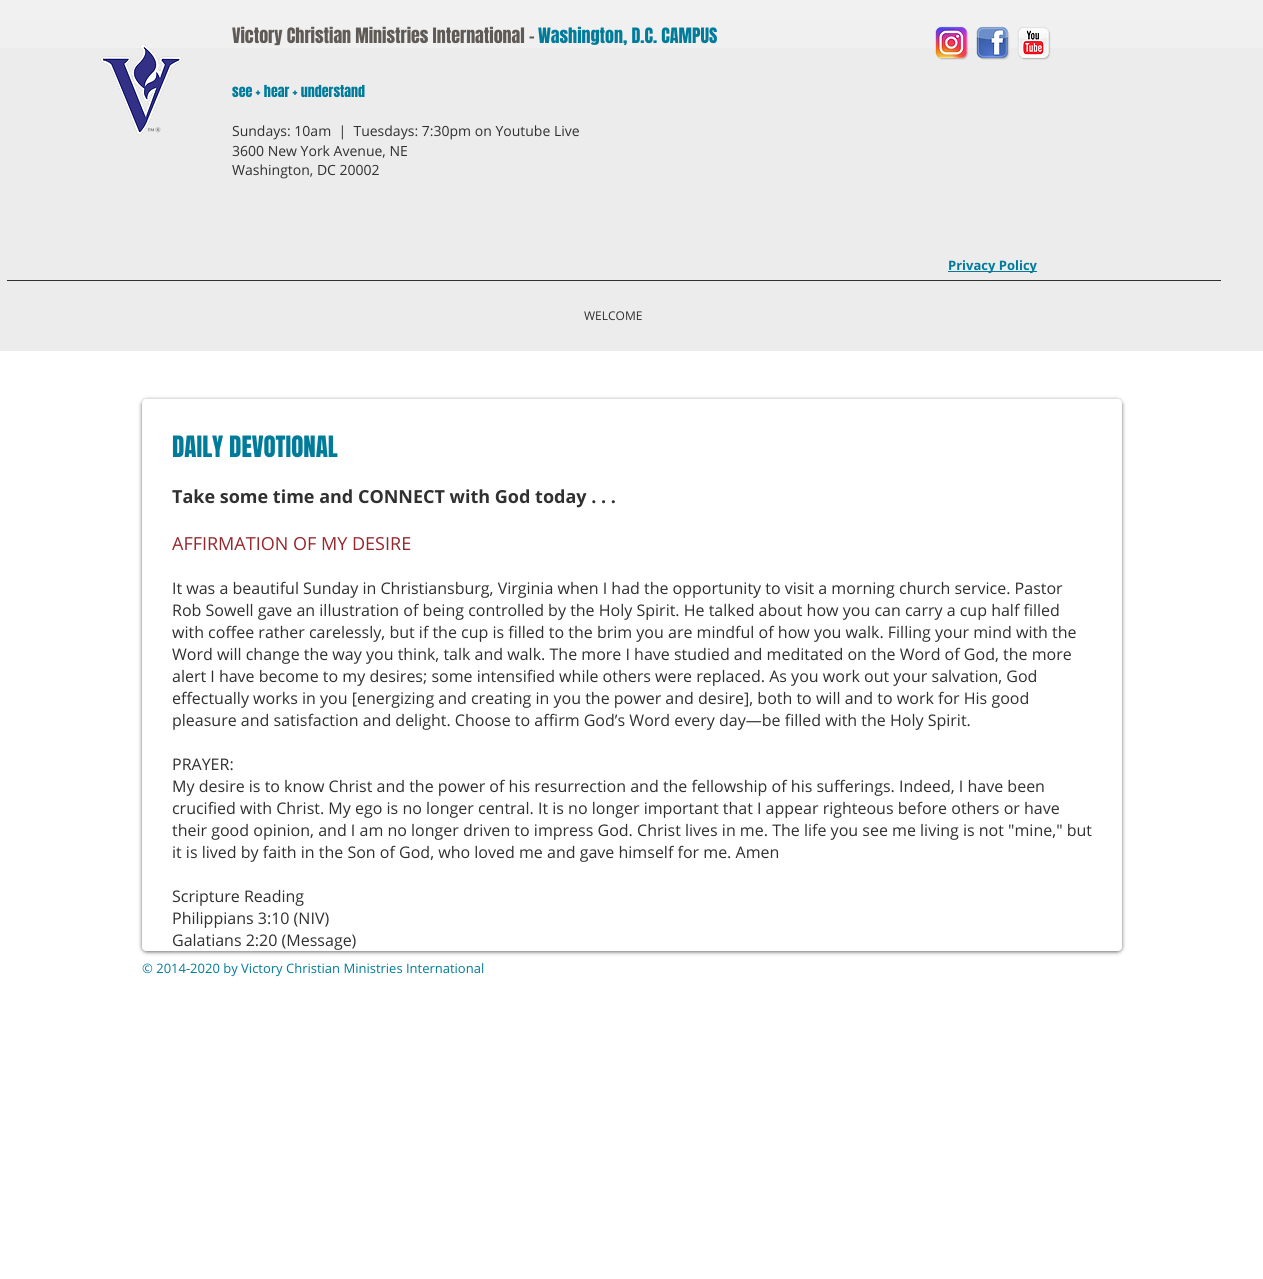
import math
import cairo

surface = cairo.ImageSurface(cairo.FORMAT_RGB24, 1263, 1279)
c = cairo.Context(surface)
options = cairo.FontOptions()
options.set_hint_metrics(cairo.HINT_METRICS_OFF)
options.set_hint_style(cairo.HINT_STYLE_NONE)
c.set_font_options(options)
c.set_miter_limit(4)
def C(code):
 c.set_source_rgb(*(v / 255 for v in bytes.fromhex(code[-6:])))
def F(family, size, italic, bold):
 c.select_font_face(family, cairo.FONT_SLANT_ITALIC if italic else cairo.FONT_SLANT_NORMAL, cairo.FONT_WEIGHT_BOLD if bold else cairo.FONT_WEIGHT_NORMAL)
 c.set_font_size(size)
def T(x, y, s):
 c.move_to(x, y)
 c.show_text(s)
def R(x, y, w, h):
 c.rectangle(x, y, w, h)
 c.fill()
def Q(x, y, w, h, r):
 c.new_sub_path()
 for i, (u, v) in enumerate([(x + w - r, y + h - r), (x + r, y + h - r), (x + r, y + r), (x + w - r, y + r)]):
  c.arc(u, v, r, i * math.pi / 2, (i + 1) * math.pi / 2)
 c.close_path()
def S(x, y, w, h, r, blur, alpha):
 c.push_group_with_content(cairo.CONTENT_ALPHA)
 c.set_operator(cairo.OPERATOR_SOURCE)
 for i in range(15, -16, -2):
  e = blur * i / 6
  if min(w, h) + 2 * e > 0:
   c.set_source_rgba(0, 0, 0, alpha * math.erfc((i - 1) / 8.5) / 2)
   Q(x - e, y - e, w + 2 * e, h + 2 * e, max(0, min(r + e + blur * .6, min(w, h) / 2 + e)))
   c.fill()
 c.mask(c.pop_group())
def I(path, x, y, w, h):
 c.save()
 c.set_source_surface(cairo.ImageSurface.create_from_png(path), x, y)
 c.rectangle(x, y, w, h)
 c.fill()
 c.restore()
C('ffffff')
c.paint()
C('ececec')
R(0,0,1263,351)
I('1.png',0,0,1263,48)
I('2.png',100,44,82,91)
F('Anton',18,0,0)
C('5f5a55')
T(232,43,'Victory Christian Ministries International -')
C('007b9a')
T(538,43,'Washington, D.C. CAMPUS')
I('3.png',935,26,34,34)
I('4.png',976,26,34,34)
I('5.png',1017,27,34,33)
F('Anton',14,0,0)
T(232,97,'see + hear + understand')
F('Open Sans',14,0,0)
C('303030')
T(232,136,'Sundays: 10am  |  Tuesdays: 7:30pm on Youtube Live')
T(232,156,'3600 New York Avenue, NE')
T(232,175,'Washington, DC 20002')
C('007b9a')
R(948,271,89,1)
F('Open Sans',13,0,1)
T(948,270,'Privacy Policy')
C('303030')
R(7,280,1214,1)
F('Open Sans',12,0,0)
T(584,320,'WELCOME')
c.save()
c.set_fill_rule(cairo.FILL_RULE_EVEN_ODD)
c.new_path()
c.move_to(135,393)
c.line_to(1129,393)
c.line_to(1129,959)
c.line_to(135,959)
c.close_path()
c.move_to(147,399)
c.line_to(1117,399)
c.curve_to(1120,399,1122,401,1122,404)
c.line_to(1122,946)
c.curve_to(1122,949,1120,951,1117,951)
c.line_to(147,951)
c.curve_to(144,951,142,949,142,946)
c.line_to(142,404)
c.curve_to(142,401,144,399,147,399)
c.close_path()
c.clip()
C('000000')
S(142,400,980,552,5,2,.6)
c.restore()
c.set_source_rgba(1,1,1,0.75)
Q(142,399,980,552,5)
c.fill()
F('Anton',25,0,0)
C('007b9a')
T(172,457,'DAILY DEVOTIONAL')
F('Open Sans',18,0,1)
C('303030')
T(172,503,'Take some time and CONNECT with God today . . .')
F('Open Sans',18,0,0)
C('96272d')
T(172,550,'AFFIRMATION OF MY DESIRE')
F('Open Sans',16,0,0)
C('303030')
T(172,594,'It was a beautiful Sunday in Christiansburg, Virginia when I had the opportunity to visit a morning church service. Pastor')
T(172,616,'Rob Sowell gave an illustration of being controlled by the Holy Spirit. He talked about how you can carry a cup half filled')
T(172,638,'with coffee rather carelessly, but if the cup is filled to the brim you are mindful of how you walk. Filling your mind with the')
T(172,660,'Word will change the way you think, talk and walk. The more I have studied and meditated on the Word of God, the more')
T(172,682,'alert I have become to my desires; some intensified while others were replaced. As you work out your salvation, God')
T(172,704,'effectually works in you [energizing and creating in you the power and desire], both to will and to work for His good')
T(172,726,'pleasure and satisfaction and delight. Choose to affirm God’s Word every day—be filled with the Holy Spirit.')
T(172,770,'PRAYER:')
T(172,792,'My desire is to know Christ and the power of his resurrection and the fellowship of his sufferings. Indeed, I have been')
T(172,814,'crucified with Christ. My ego is no longer central. It is no longer important that I appear righteous before others or have')
T(172,836,'their good opinion, and I am no longer driven to impress God. Christ lives in me. The life you see me living is not "mine," but')
T(172,858,'it is lived by faith in the Son of God, who loved me and gave himself for me. Amen')
T(172,902,'Scripture Reading')
T(172,924,'Philippians 3:10 (NIV)')
T(172,946,'Galatians 2:20 (Message)')
F('Open Sans',13,0,0)
C('007b9a')
T(142,973,'© 2014-2020 by Victory Christian Ministries International')
surface.write_to_png('o.png')
